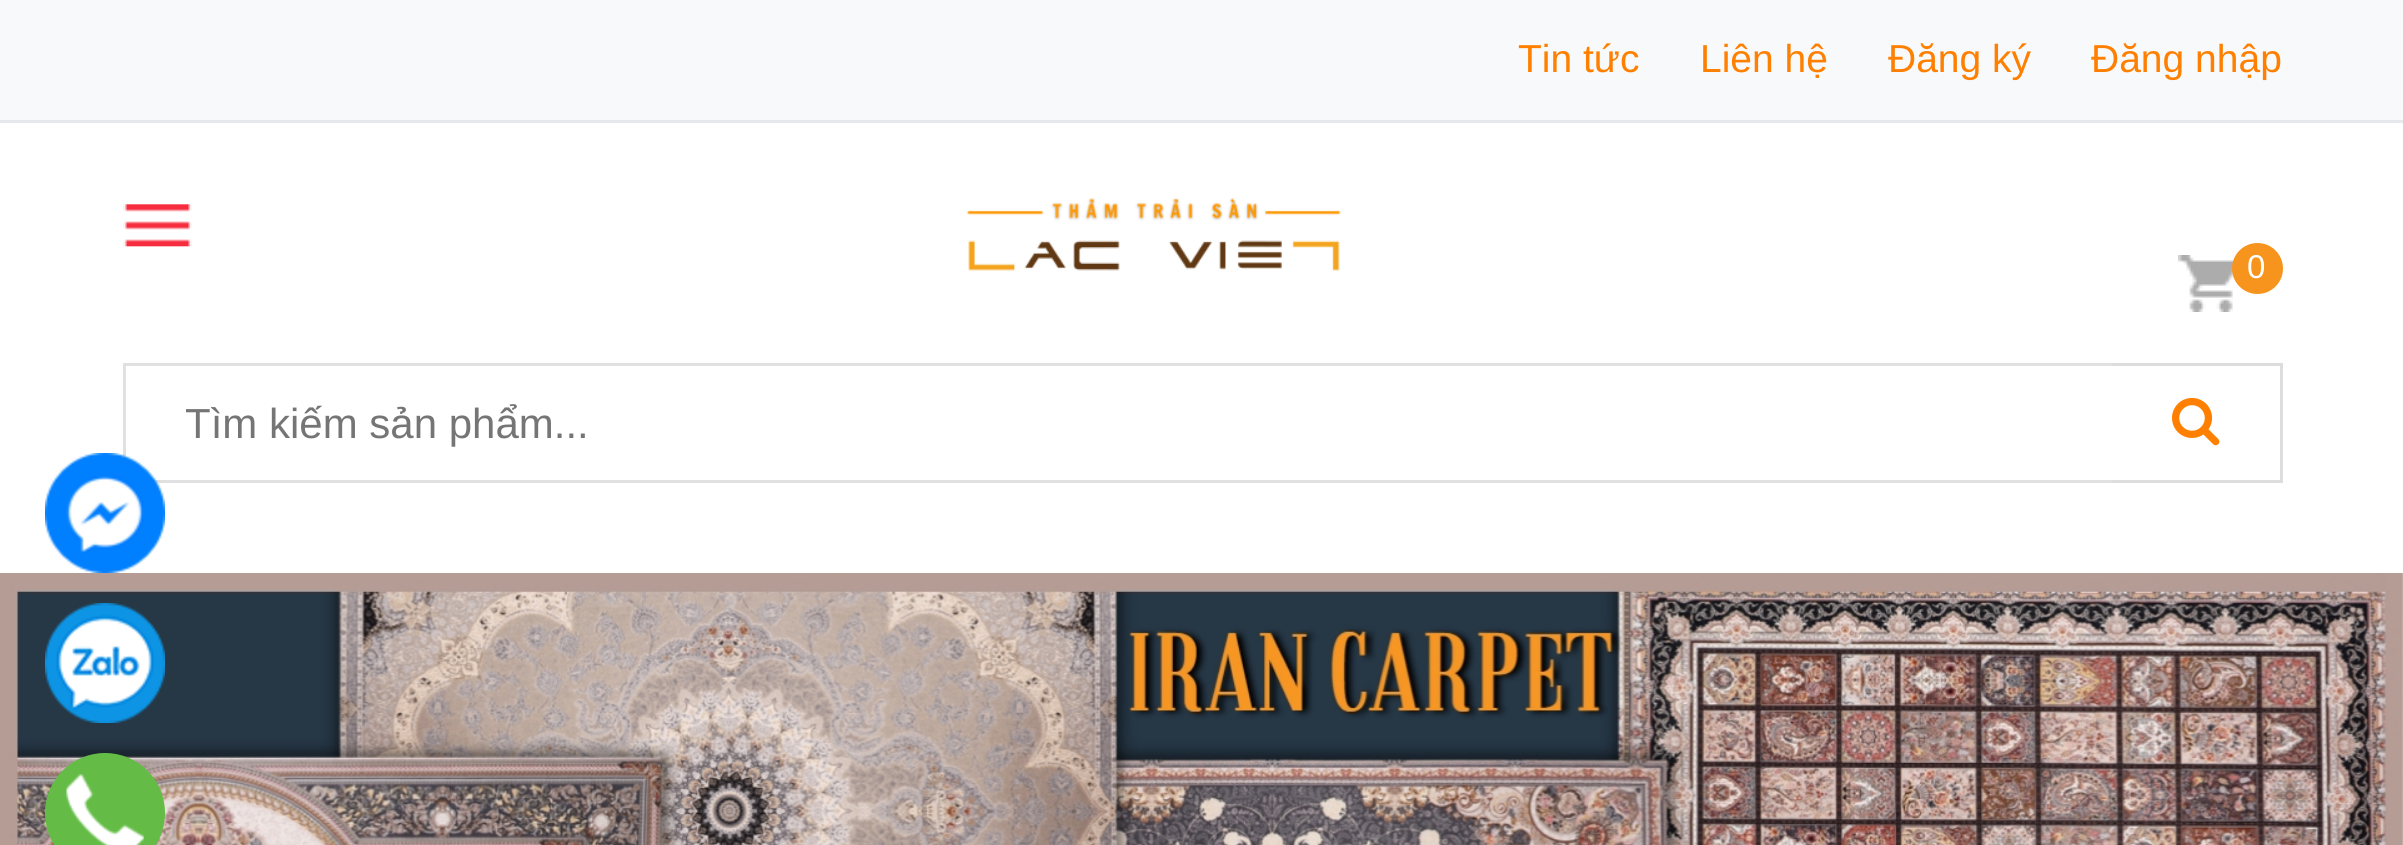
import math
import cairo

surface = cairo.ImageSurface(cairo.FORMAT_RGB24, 2403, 845)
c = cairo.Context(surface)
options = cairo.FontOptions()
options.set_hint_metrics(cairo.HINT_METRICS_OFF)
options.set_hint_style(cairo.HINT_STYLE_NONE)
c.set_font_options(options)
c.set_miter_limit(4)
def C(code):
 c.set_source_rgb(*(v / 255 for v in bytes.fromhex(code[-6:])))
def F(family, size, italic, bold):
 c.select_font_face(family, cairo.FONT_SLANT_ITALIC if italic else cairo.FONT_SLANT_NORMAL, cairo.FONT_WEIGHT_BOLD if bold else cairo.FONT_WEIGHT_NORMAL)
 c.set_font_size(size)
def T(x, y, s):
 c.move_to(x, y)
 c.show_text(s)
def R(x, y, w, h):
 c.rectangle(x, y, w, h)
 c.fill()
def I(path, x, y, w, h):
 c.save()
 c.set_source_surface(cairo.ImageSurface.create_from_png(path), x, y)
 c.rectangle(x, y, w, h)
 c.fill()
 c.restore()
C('ffffff')
c.paint()
C('f8f9fb')
R(0,0,2403,120)
C('e7e8ed')
R(0,120,2403,3)
F('Liberation Sans',39,0,0)
C('ff8000')
T(1518,72,'Tin tức')
T(1700,72,'Liên hệ')
T(1888,72,'Đăng ký')
T(2091,72,'Đăng nhập')
I('1.png',123,204,69,43)
I('2.png',966,198,375,73)
I('3.png',2178,255,56,57)
C('f7941d')
c.arc(2257.5,268.5,25.5,0,2 * math.pi)
c.fill()
F('Liberation Sans',33,0,0)
C('ffffff')
T(2247,278,'0')
C('e1e1e1')
R(123,363,1992,3)
R(152,480,1963,3)
R(123,363,3,96)
c.save()
c.rectangle(186,399,1917,48)
c.clip()
F('Liberation Sans',42,0,0)
C('757575')
T(185,438,'Tìm kiếm sản phẩm...')
c.restore()
C('dddddd')
R(2112,363,171,3)
R(2280,363,3,120)
R(2112,480,171,3)
I('4.png',2172,397,48,49)
I('5.png',45,453,120,120)
I('8.png',0,573,2403,272)
I('6.png',45,603,120,120)
C('64bc46')
c.arc(105,813,60,0,2 * math.pi)
c.fill()
I('7.png',66,774,78,71)
surface.write_to_png('o.png')
